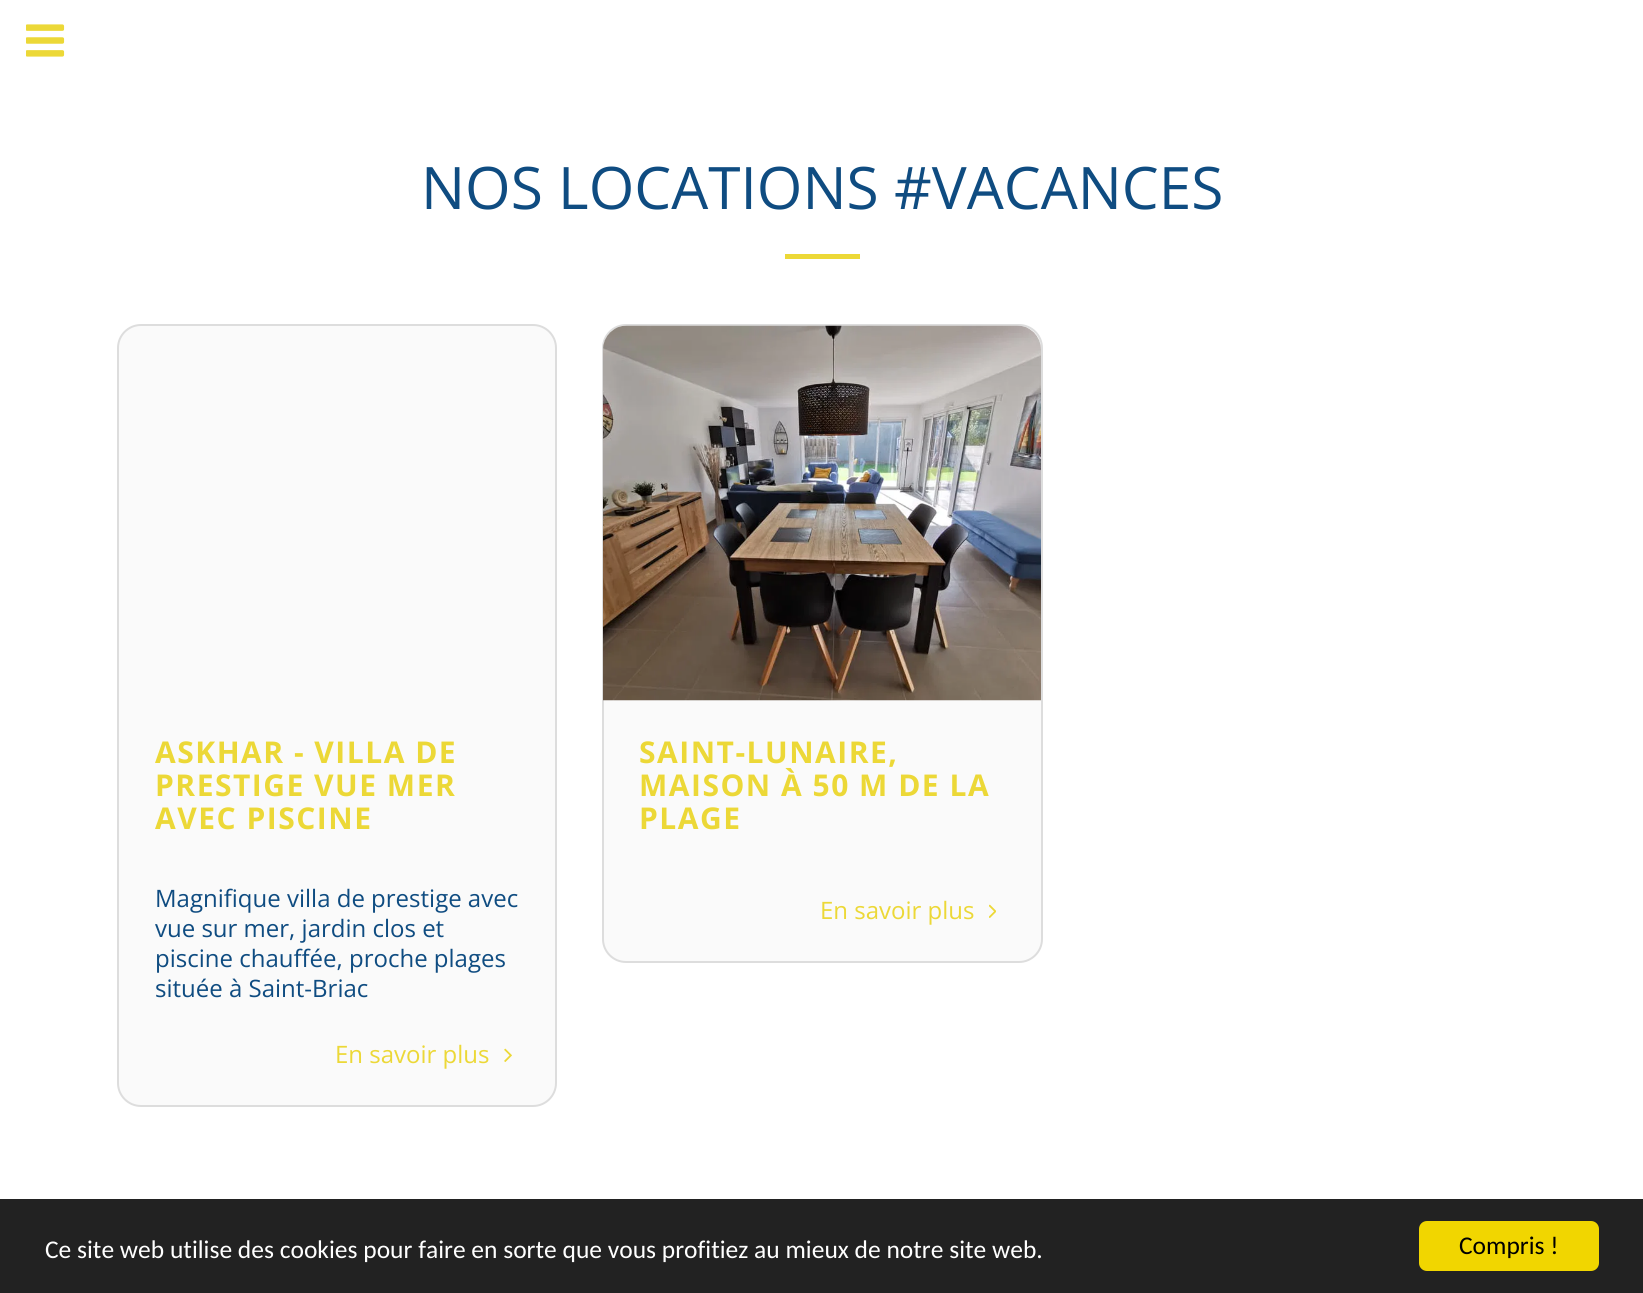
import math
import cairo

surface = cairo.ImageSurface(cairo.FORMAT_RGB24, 1643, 1293)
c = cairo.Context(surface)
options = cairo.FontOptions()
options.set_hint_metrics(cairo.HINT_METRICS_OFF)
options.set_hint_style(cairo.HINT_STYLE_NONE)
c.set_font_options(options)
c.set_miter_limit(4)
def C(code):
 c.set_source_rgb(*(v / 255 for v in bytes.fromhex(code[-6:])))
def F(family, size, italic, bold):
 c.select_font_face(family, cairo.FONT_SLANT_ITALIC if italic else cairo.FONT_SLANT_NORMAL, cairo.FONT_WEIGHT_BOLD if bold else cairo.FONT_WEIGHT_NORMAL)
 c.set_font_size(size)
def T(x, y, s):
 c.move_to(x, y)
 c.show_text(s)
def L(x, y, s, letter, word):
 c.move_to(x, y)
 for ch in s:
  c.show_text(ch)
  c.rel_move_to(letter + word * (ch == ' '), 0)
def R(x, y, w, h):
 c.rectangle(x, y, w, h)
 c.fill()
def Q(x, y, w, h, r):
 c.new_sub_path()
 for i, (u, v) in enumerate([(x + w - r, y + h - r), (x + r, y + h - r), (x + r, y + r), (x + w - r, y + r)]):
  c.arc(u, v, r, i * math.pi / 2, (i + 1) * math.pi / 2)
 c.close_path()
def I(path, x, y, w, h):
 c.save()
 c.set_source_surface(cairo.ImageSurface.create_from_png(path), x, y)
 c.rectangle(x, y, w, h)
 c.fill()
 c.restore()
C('ffffff')
c.paint()
I('1.png',26,24,39,33)
F('Open Sans',58.6,0,0)
C('0f4c81')
T(421,209,'NOS LOCATIONS #VACANCES')
C('ecd837')
R(785,254,75,5)
C('fafafa')
Q(118,325,438,781,23)
c.fill_preserve()
C('dddddd')
c.stroke()
F('Open Sans',30,0,1)
C('ecd837')
L(155,763,'ASKHAR - VILLA DE',1.5,0)
L(155,796,'PRESTIGE VUE MER',1.5,0)
L(155,829,'AVEC PISCINE',1.5,0)
F('Open Sans',24,0,0)
C('0f4c81')
T(155,907,'Magnifique villa de prestige avec')
T(155,937,'vue sur mer, jardin clos et')
T(155,967,'piscine chauffée, proche plages')
T(155,997,'située à Saint-Briac')
C('ecd837')
T(335,1063,'En savoir plus')
I('2.png',504,1048,8,14)
C('fafafa')
Q(603,325,439,637,23)
c.fill_preserve()
C('dddddd')
c.stroke()
I('3.png',603,325,438,376)
F('Open Sans',30,0,1)
C('ecd837')
L(639,763,'SAINT-LUNAIRE,',1.5,0)
L(639,796,'MAISON À 50 M DE LA',1.5,0)
L(639,829,'PLAGE',1.5,0)
F('Open Sans',24,0,0)
T(820,919,'En savoir plus')
I('4.png',989,904,7,14)
C('222222')
R(0,1199,1643,94)
F('Carlito',25.5,0,0)
C('ffffff')
T(45,1258,'Ce site web utilise des cookies pour faire en sorte que vous profitiez au mieux de notre site web.')
C('f1d600')
Q(1419,1221,180,50,8)
c.fill()
C('000000')
T(1459,1254,'Compris !')
surface.write_to_png('o.png')
